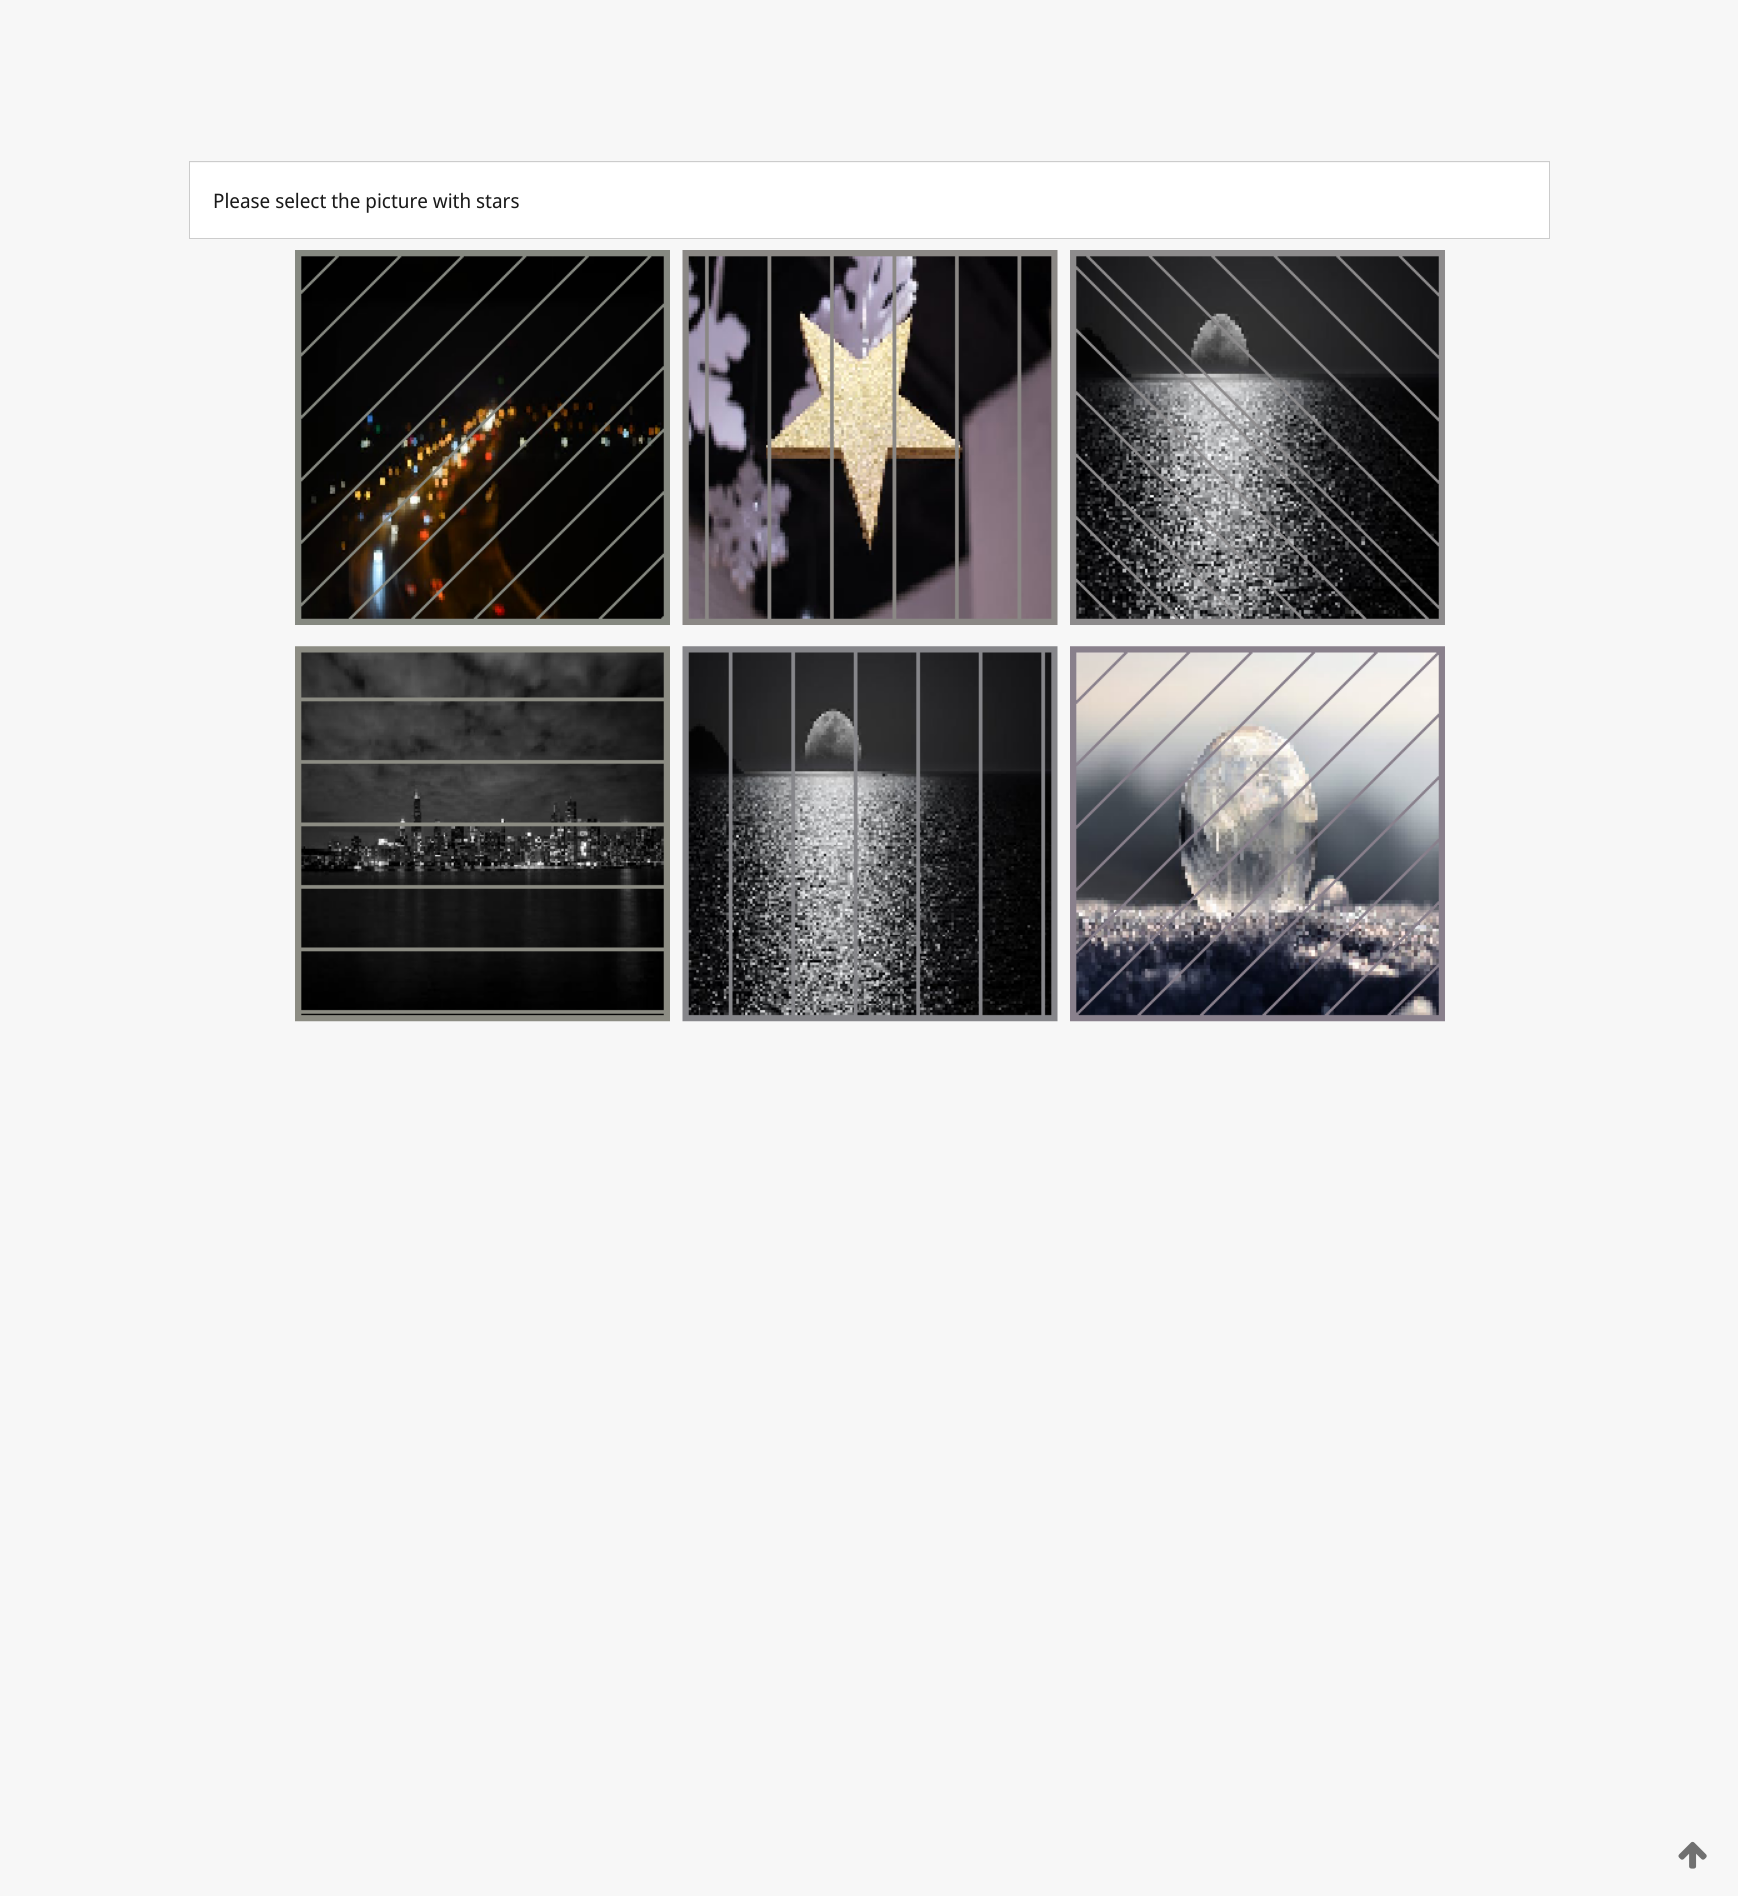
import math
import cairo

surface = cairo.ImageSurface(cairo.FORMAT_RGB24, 1738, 1896)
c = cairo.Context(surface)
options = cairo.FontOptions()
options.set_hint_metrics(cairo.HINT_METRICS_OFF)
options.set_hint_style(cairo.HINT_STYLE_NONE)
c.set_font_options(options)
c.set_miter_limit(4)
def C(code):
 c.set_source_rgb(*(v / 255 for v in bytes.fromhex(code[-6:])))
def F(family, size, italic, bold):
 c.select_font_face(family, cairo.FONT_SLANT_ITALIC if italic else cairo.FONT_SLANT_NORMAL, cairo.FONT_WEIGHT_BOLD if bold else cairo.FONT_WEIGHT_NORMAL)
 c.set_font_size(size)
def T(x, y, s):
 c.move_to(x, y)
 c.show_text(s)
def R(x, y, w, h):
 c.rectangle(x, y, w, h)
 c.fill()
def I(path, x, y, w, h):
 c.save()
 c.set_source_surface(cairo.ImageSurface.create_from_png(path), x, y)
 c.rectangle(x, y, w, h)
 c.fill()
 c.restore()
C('f7f7f7')
c.paint()
C('ffffff')
R(190,163,1359,75)
c.rectangle(189.5,161.5,1360,77)
C('cccccc')
c.set_line_width(1)
c.stroke()
F('Noto Sans Display',20,0,0)
C('1a1a1a')
T(213,208,'Please select the picture with stars')
I('1.png',295,250,375,375)
I('2.png',682,250,376,375)
I('3.png',1070,250,375,375)
I('4.png',295,646,375,376)
I('5.png',682,646,376,376)
I('6.png',1070,646,375,376)
I('7.png',1678,1841,29,28)
surface.write_to_png('o.png')
